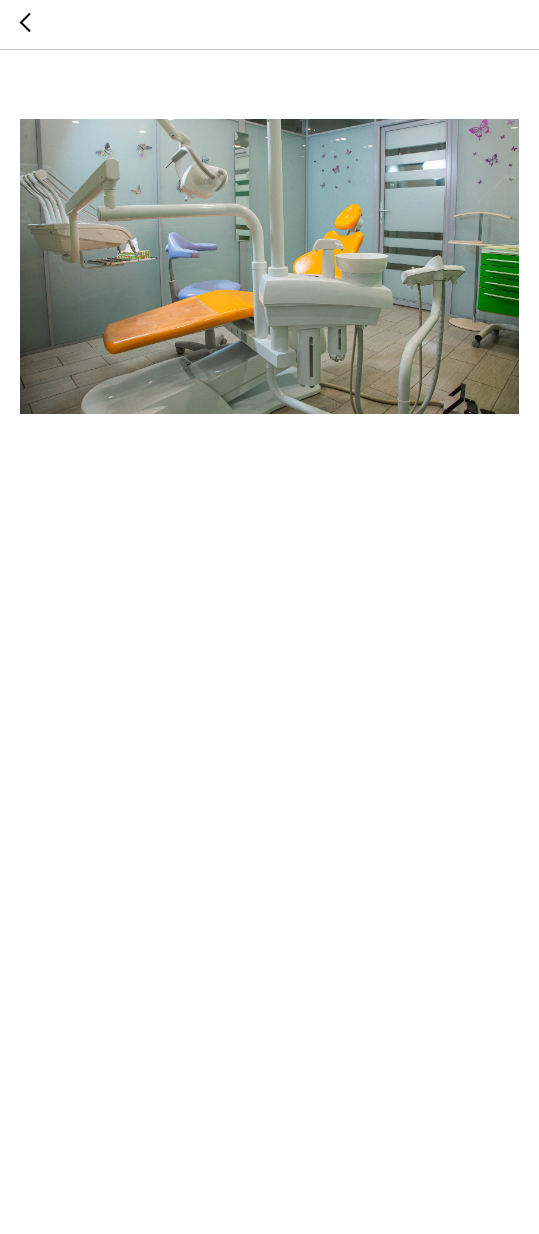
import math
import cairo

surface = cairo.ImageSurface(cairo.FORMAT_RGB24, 539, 1234)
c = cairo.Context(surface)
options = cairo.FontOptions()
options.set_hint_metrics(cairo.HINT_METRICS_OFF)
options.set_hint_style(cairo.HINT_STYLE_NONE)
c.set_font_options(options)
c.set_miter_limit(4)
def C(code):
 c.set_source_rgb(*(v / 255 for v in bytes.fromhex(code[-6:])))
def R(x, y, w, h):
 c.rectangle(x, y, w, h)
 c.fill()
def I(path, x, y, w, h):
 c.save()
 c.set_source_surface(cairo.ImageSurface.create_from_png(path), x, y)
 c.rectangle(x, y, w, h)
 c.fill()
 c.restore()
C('ffffff')
c.paint()
C('cccccc')
R(0,49,539,1)
c.new_path()
c.move_to(30,31.5)
c.line_to(21,22.5)
c.line_to(30,13.5)
C('000000')
c.stroke()
I('1.png',20,119,499,295)
surface.write_to_png('o.png')
